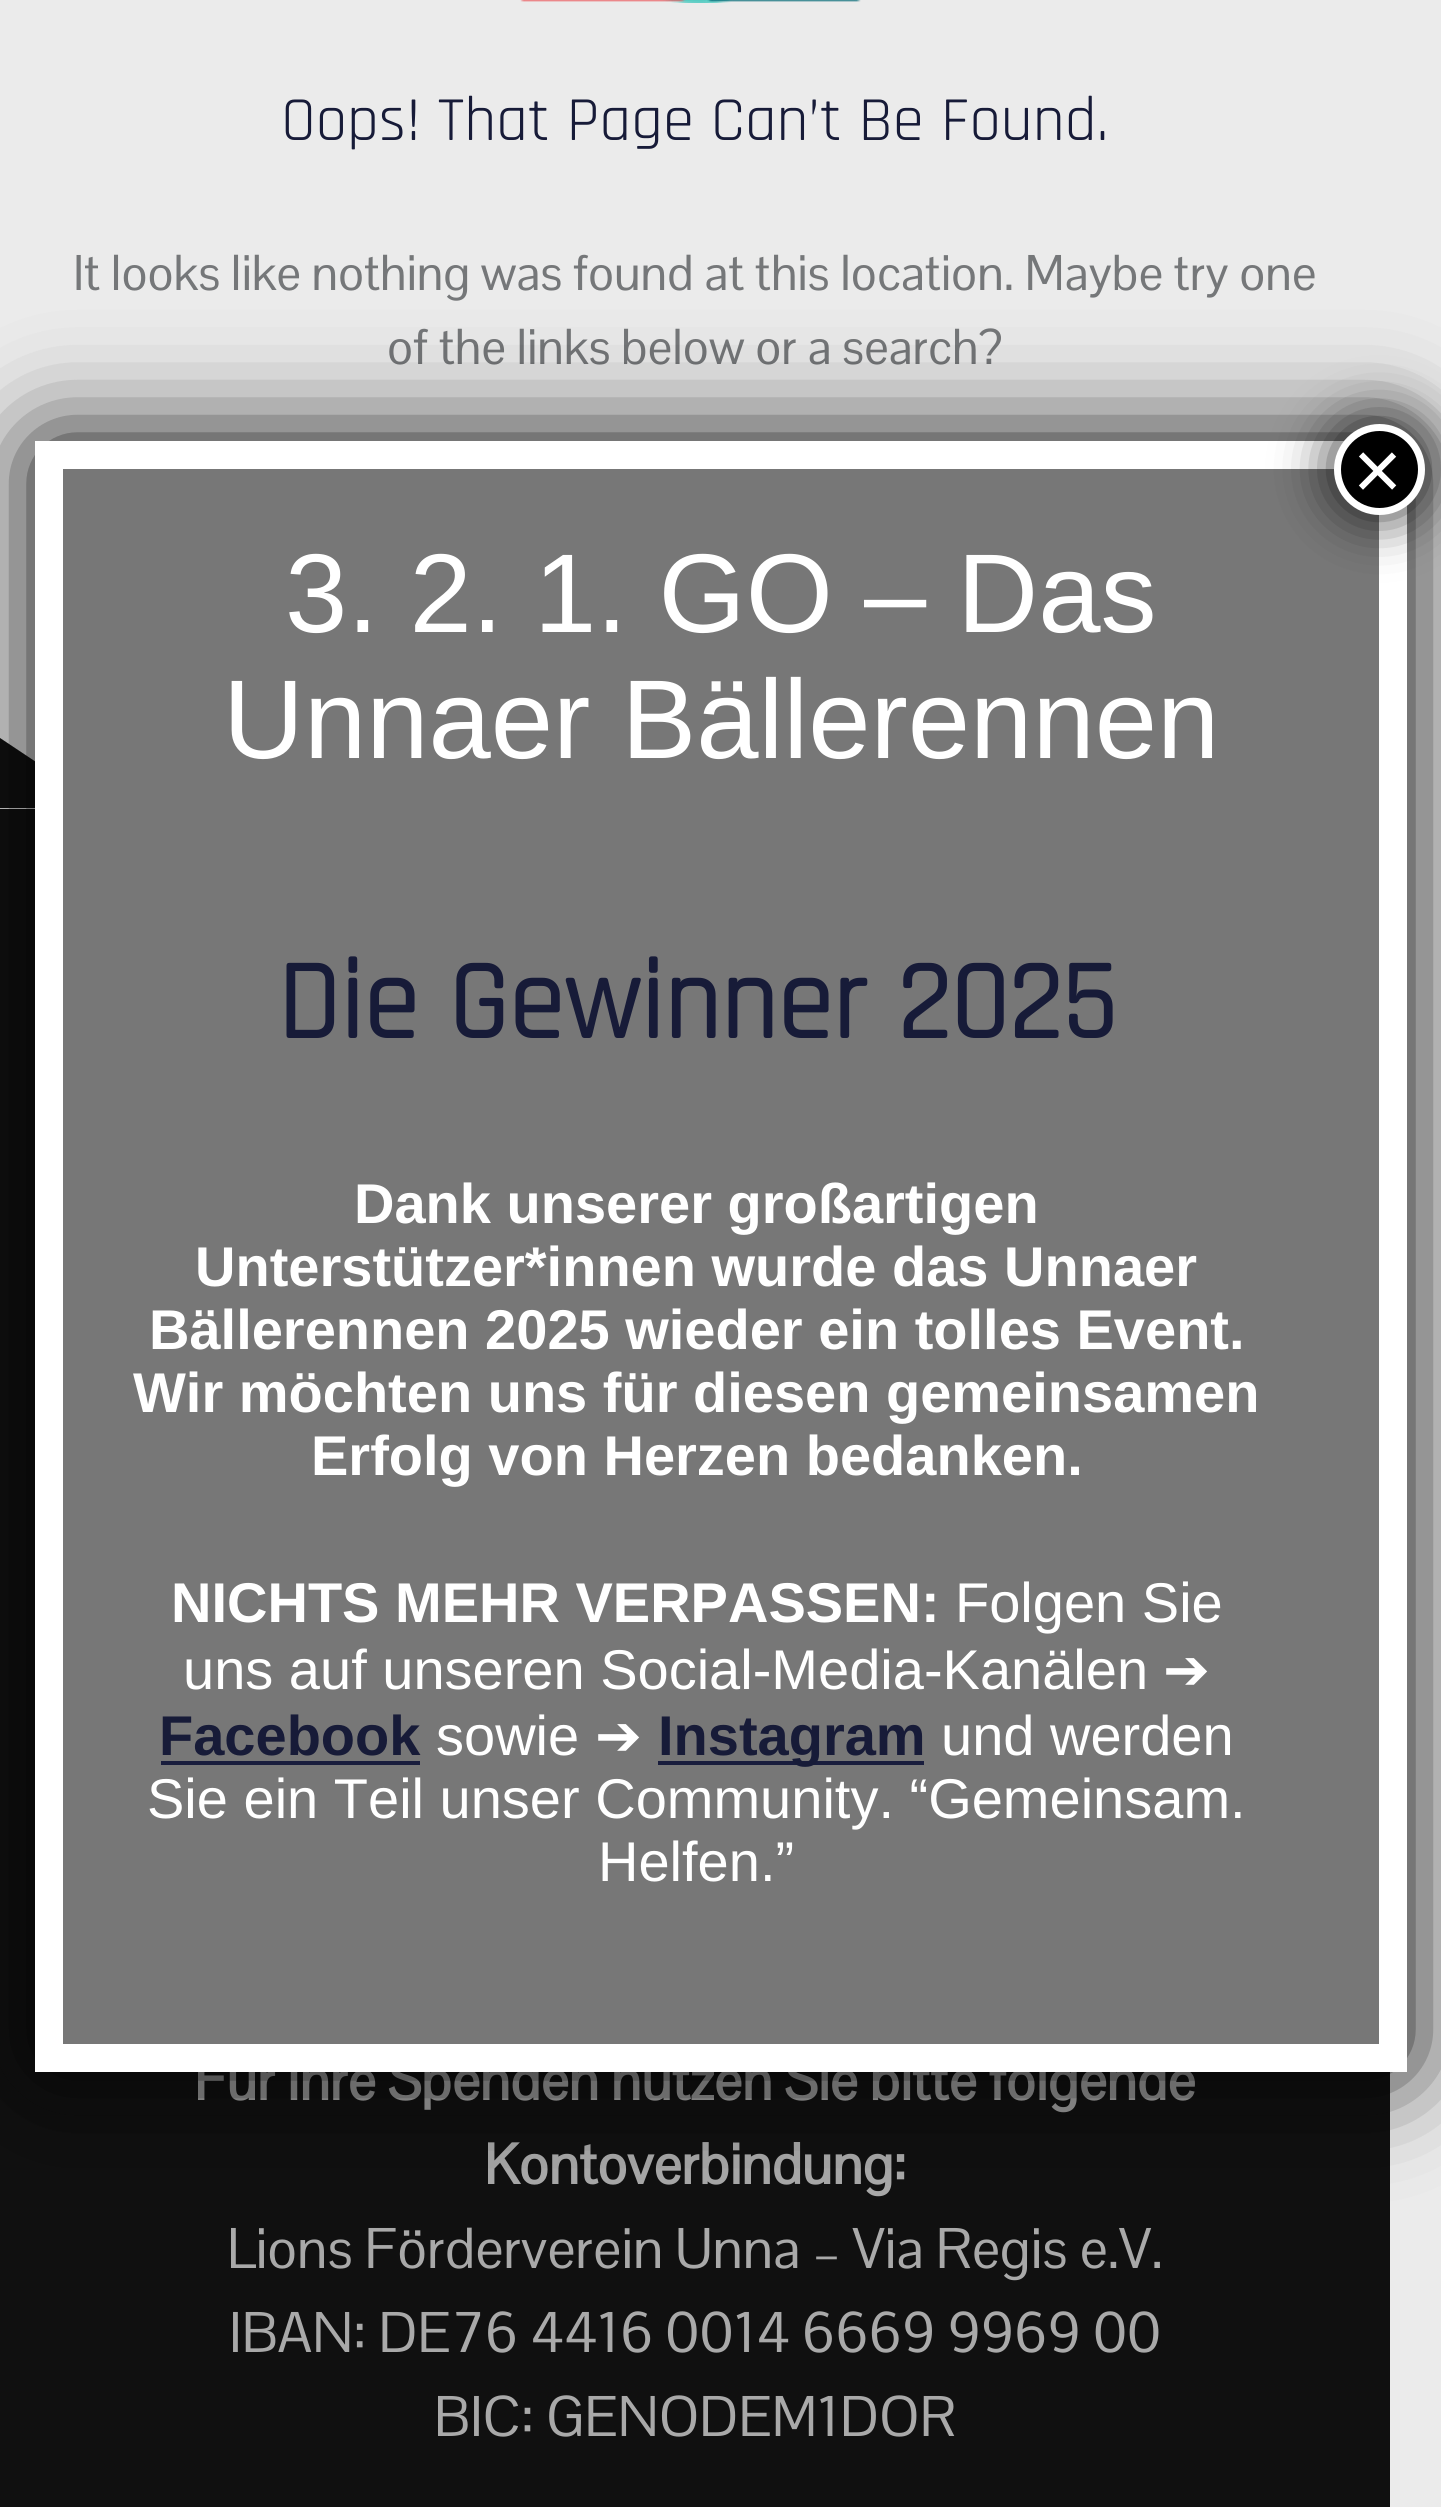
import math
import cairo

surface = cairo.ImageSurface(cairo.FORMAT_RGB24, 1441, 2507)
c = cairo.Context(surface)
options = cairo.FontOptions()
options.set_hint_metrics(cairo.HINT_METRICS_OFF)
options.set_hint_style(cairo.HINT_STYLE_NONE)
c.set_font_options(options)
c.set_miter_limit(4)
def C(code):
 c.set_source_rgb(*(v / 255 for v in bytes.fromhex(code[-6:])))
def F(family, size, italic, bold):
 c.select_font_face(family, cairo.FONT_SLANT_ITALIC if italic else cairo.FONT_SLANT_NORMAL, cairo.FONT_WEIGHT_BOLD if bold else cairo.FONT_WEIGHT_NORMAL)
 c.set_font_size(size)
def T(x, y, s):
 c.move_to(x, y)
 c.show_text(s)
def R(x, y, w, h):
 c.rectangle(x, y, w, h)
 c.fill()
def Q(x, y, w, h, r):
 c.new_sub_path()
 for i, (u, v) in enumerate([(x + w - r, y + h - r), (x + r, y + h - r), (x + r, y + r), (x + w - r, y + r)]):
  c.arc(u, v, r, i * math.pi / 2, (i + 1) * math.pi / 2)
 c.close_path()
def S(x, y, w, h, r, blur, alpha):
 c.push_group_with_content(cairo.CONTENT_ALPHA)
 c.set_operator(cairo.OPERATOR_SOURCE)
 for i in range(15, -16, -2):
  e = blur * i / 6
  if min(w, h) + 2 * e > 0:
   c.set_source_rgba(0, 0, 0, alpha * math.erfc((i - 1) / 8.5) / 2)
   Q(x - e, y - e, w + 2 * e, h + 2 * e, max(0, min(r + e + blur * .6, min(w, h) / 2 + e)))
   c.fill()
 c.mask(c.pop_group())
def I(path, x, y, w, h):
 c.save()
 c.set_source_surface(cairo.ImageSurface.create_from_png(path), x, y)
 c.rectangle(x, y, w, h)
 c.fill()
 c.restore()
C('ebebeb')
c.paint()
I('1.png',520,0,341,3)
F('Rajdhani',63,0,0)
C('171b38')
T(281,140,'Oops! That Page Can’t Be Found.')
F('Pontano Sans',49,0,0)
C('757779')
T(73,290,'It looks like nothing was found at this location. Maybe try one')
T(387,364,'of the links below or a search?')
C('101010')
R(0,809,1390,1698)
c.new_path()
c.move_to(105,808)
c.line_to(0,808)
c.line_to(0,738)
c.close_path()
c.fill()
F('Pontano Sans',56,0,1)
C('a9a9a9')
T(194,2100,'Für Ihre Spenden nutzen Sie bitte folgende')
T(484,2184,'Kontoverbindung:')
F('Pontano Sans',56,0,0)
T(227,2268,'Lions Förderverein Unna – Via Regis e.V.')
T(229,2352,'IBAN: DE76 4416 0014 6669 9969 00')
T(434,2436,'BIC: GENODEM1DOR')
C('020202')
S(35,441,1372,1631,11,52.5,1)
C('777777')
R(63,469,1316,1575)
c.new_path()
c.move_to(49,455)
c.line_to(1393,455)
c.line_to(1393,2058)
c.line_to(49,2058)
c.close_path()
C('ffffff')
c.set_line_width(28)
c.stroke()
C('020202')
S(1330,420,98,98,49,26,.75)
C('000000')
c.arc(1379.5,469.5,42,0,2 * math.pi)
c.fill_preserve()
C('ffffff')
c.set_line_width(7)
c.stroke()
F('Liberation Sans',84,0,0)
T(1353,499,'×')
F('Liberation Sans',112,0,0)
T(285,632,'3. 2. 1. GO – Das')
T(223,758,'Unnaer Bällerennen')
F('Rajdhani',112,0,1)
C('171b38')
T(277,1038,'Die Gewinner 2025')
F('Liberation Sans',56,0,1)
C('ffffff')
T(354,1223,'Dank unserer großartigen')
T(195,1286,'Unterstützer*innen wurde das Unnaer')
T(149,1349,'Bällerennen 2025 wieder ein tolles Event.')
T(133,1412,'Wir möchten uns für diesen gemeinsamen')
T(311,1475,'Erfolg von Herzen bedanken.')
T(171,1622,'NICHTS MEHR VERPASSEN:')
F('Liberation Sans',56,0,0)
T(955,1622,'Folgen Sie')
T(183,1689,'uns auf unseren Social-Media-Kanälen')
F('DejaVu Sans',56,0,0)
T(1163,1689,'➔')
F('Liberation Sans',56,0,1)
C('171b38')
T(159,1755,'Facebook')
C('191d3d')
R(161,1761,259,4)
F('Liberation Sans',56,0,0)
C('ffffff')
T(436,1755,'sowie')
F('DejaVu Sans',56,0,0)
T(595,1755,'➔')
C('191d3d')
R(658,1761,266,4)
F('Liberation Sans',56,0,1)
C('171b38')
T(658,1755,'Instagram')
F('Liberation Sans',56,0,0)
C('ffffff')
T(941,1755,'und werden')
T(147,1818,'Sie ein Teil unser Community. “Gemeinsam.')
T(598,1881,'Helfen.”')
surface.write_to_png('o.png')
